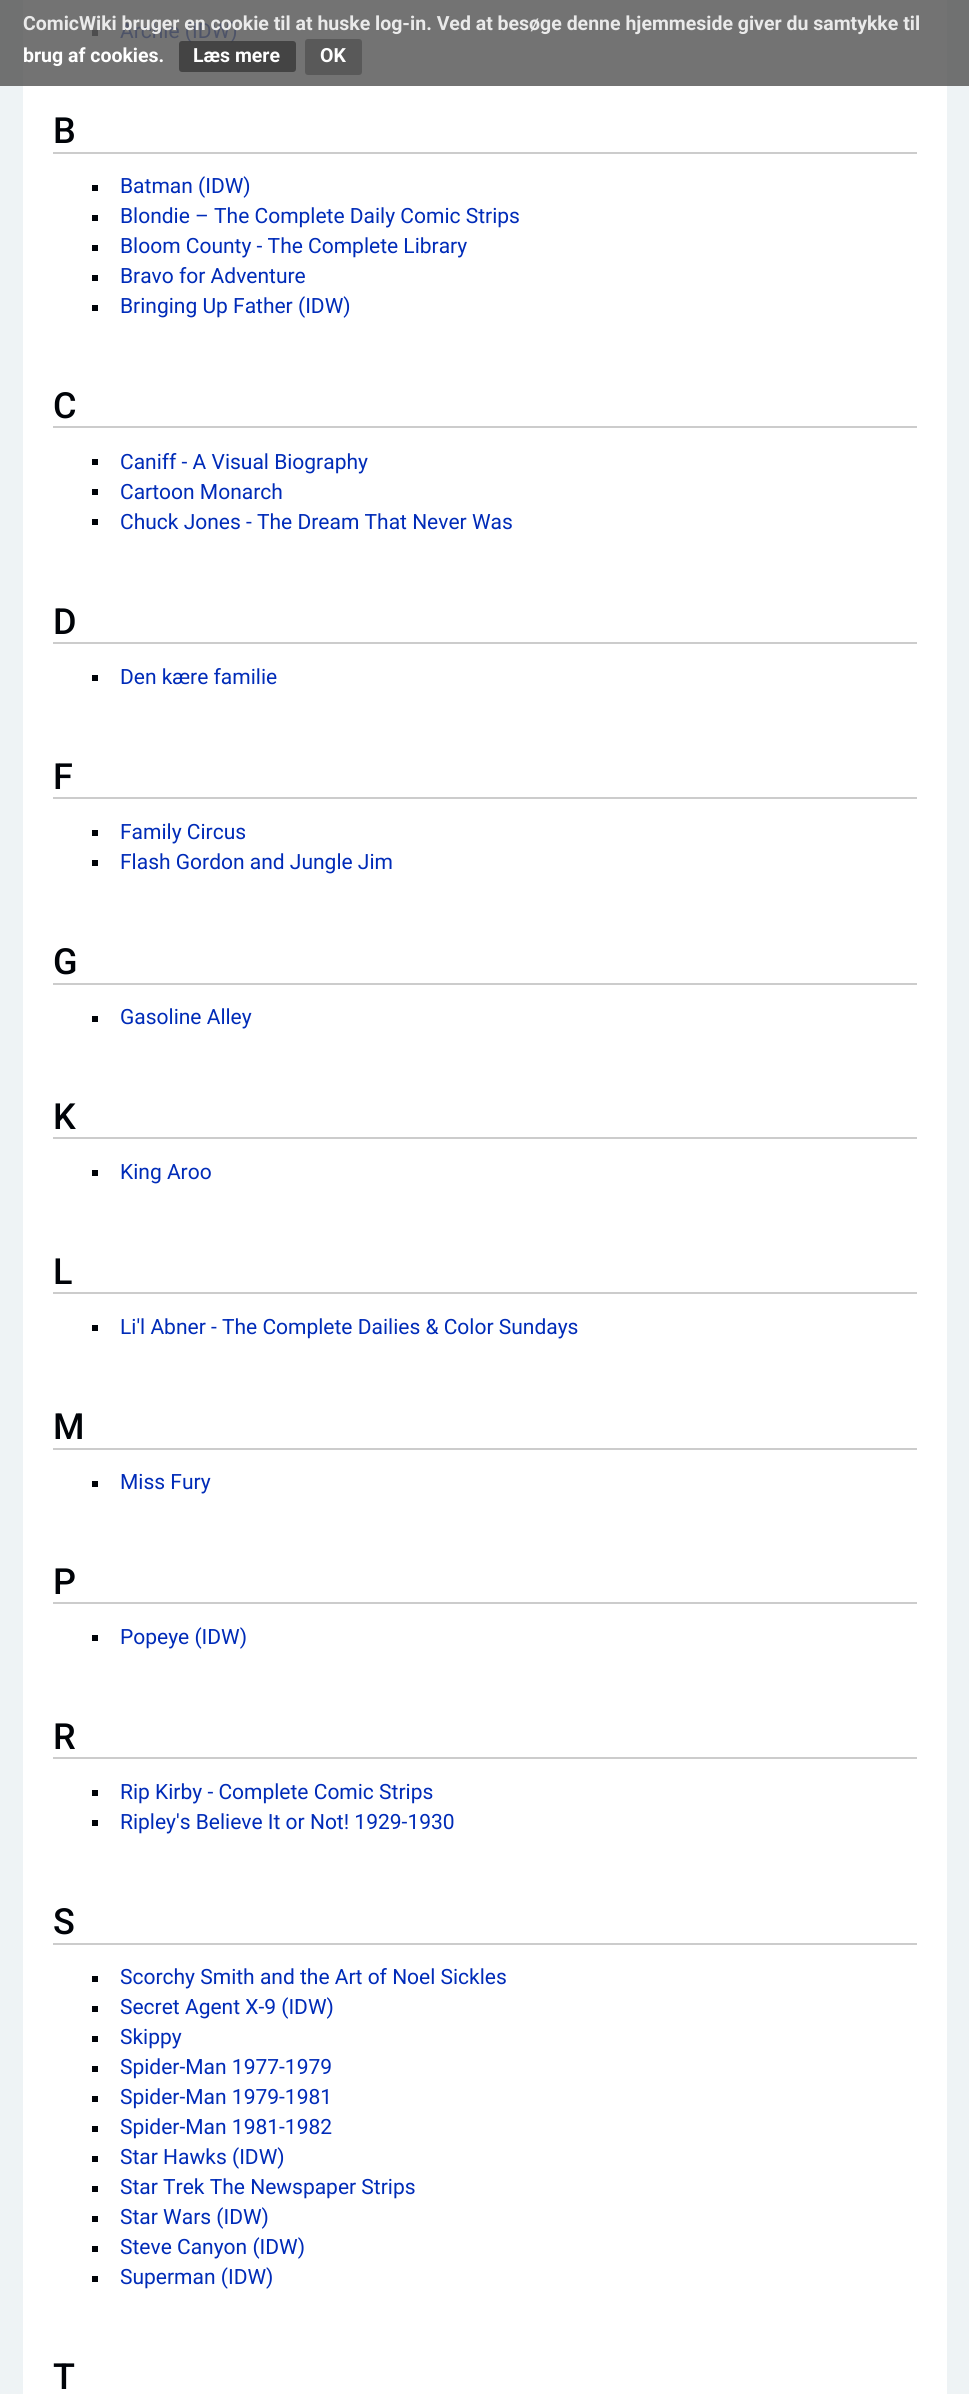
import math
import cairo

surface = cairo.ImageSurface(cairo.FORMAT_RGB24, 969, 2394)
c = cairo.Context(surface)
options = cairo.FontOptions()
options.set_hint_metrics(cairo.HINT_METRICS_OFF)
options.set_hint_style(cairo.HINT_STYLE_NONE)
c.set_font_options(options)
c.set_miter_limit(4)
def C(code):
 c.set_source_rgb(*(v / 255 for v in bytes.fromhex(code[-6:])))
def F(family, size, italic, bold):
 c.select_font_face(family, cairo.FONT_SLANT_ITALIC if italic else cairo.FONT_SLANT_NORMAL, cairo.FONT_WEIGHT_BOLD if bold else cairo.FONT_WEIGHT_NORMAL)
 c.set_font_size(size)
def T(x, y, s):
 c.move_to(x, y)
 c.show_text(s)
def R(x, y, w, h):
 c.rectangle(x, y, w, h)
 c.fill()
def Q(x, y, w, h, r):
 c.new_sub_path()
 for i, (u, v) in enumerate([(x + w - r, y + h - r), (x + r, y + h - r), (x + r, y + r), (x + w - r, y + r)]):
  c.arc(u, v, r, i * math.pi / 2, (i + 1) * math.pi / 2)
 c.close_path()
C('eef3f5')
c.paint()
C('707171')
R(0,0,969,86)
C('737373')
R(23,0,924,86)
C('4d4d4e')
R(92,30,6,6)
F('Roboto',21,0,0)
C('4d5368')
T(120,38,'Archie (IDW)')
F('Roboto',19.5,0,1)
C('eaeaea')
T(23,30,'ComicWiki bruger en cookie til at huske log-in. Ved at besøge denne hjemmeside giver du samtykke til')
C('ffffff')
T(23,62,'brug af cookies.')
c.set_source_rgba(0.235,0.235,0.235,0.85)
Q(179,41,117,31,3)
c.fill()
C('ffffff')
T(193,62,'Læs mere')
C('595959')
Q(305,39,57,36,3)
c.fill()
C('ffffff')
T(320,62,'OK')
R(23,86,924,2308)
C('cccccc')
R(53,152,864,2)
F('Roboto Medium',36,0,0)
C('000308')
T(53,143,'B')
R(92,185,6,6)
F('Roboto',21,0,0)
C('002bb8')
T(120,193,'Batman (IDW)')
C('000308')
R(92,215,6,6)
C('002bb8')
T(120,223,'Blondie – The Complete Daily Comic Strips')
C('000308')
R(92,245,6,6)
C('002bb8')
T(120,253,'Bloom County - The Complete Library')
C('000308')
R(92,275,6,6)
C('002bb8')
T(120,283,'Bravo for Adventure')
C('000308')
R(92,305,6,6)
C('002bb8')
T(120,313,'Bringing Up Father (IDW)')
C('cccccc')
R(53,426,864,2)
F('Roboto Medium',36,0,0)
C('000308')
T(53,418,'C')
R(92,459,6,6)
F('Roboto',21,0,0)
C('002bb8')
T(120,469,'Caniff - A Visual Biography')
C('000308')
R(92,489,6,6)
C('002bb8')
T(120,499,'Cartoon Monarch')
C('000308')
R(92,519,6,6)
C('002bb8')
T(120,529,'Chuck Jones - The Dream That Never Was')
C('cccccc')
R(53,642,864,2)
F('Roboto Medium',36,0,0)
C('000308')
T(53,634,'D')
R(92,675,6,6)
F('Roboto',21,0,0)
C('002bb8')
T(120,684,'Den kære familie')
C('cccccc')
R(53,797,864,2)
F('Roboto Medium',36,0,0)
C('000308')
T(53,789,'F')
R(92,830,6,6)
F('Roboto',21,0,0)
C('002bb8')
T(120,839,'Family Circus')
C('000308')
R(92,860,6,6)
C('002bb8')
T(120,869,'Flash Gordon and Jungle Jim')
C('cccccc')
R(53,983,864,2)
F('Roboto Medium',36,0,0)
C('000308')
T(53,974,'G')
R(92,1016,6,6)
F('Roboto',21,0,0)
C('002bb8')
T(120,1024,'Gasoline Alley')
C('cccccc')
R(53,1137,864,2)
F('Roboto Medium',36,0,0)
C('000308')
T(53,1129,'K')
R(92,1170,6,6)
F('Roboto',21,0,0)
C('002bb8')
T(120,1179,'King Aroo')
C('cccccc')
R(53,1292,864,2)
F('Roboto Medium',36,0,0)
C('000308')
T(53,1284,'L')
R(92,1325,6,6)
F('Roboto',21,0,0)
C('002bb8')
T(120,1334,'Li\'l Abner - The Complete Dailies & Color Sundays')
C('cccccc')
R(53,1448,864,2)
F('Roboto Medium',36,0,0)
C('000308')
T(53,1439,'M')
R(92,1481,6,6)
F('Roboto',21,0,0)
C('002bb8')
T(120,1489,'Miss Fury')
C('cccccc')
R(53,1602,864,2)
F('Roboto Medium',36,0,0)
C('000308')
T(53,1594,'P')
R(92,1635,6,6)
F('Roboto',21,0,0)
C('002bb8')
T(120,1644,'Popeye (IDW)')
C('cccccc')
R(53,1757,864,2)
F('Roboto Medium',36,0,0)
C('000308')
T(53,1749,'R')
R(92,1790,6,6)
F('Roboto',21,0,0)
C('002bb8')
T(120,1799,'Rip Kirby - Complete Comic Strips')
C('000308')
R(92,1820,6,6)
C('002bb8')
T(120,1829,'Ripley\'s Believe It or Not! 1929-1930')
C('cccccc')
R(53,1943,864,2)
F('Roboto Medium',36,0,0)
C('000308')
T(53,1934,'S')
R(92,1976,6,6)
F('Roboto',21,0,0)
C('002bb8')
T(120,1984,'Scorchy Smith and the Art of Noel Sickles')
C('000308')
R(92,2006,6,6)
C('002bb8')
T(120,2014,'Secret Agent X-9 (IDW)')
C('000308')
R(92,2036,6,6)
C('002bb8')
T(120,2044,'Skippy')
C('000308')
R(92,2066,6,6)
C('002bb8')
T(120,2074,'Spider-Man 1977-1979')
C('000308')
R(92,2096,6,6)
C('002bb8')
T(120,2104,'Spider-Man 1979-1981')
C('000308')
R(92,2126,6,6)
C('002bb8')
T(120,2134,'Spider-Man 1981-1982')
C('000308')
R(92,2156,6,6)
C('002bb8')
T(120,2164,'Star Hawks (IDW)')
C('000308')
R(92,2186,6,6)
C('002bb8')
T(120,2194,'Star Trek The Newspaper Strips')
C('000308')
R(92,2216,6,6)
C('002bb8')
T(120,2224,'Star Wars (IDW)')
C('000308')
R(92,2246,6,6)
C('002bb8')
T(120,2254,'Steve Canyon (IDW)')
C('000308')
R(92,2276,6,6)
C('002bb8')
T(120,2284,'Superman (IDW)')
F('Roboto Medium',36,0,0)
C('000308')
T(53,2389,'T')
surface.write_to_png('o.png')
